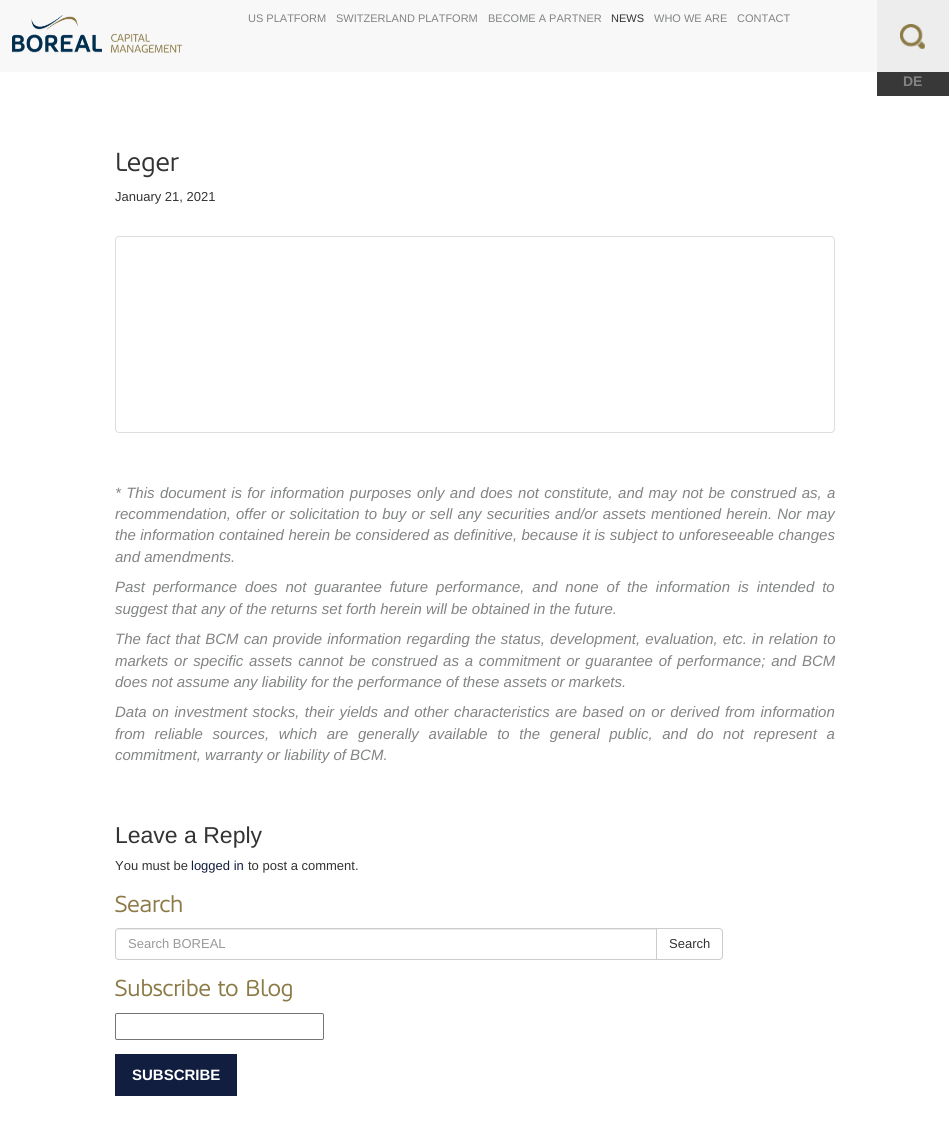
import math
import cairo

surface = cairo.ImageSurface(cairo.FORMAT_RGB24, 949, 1121)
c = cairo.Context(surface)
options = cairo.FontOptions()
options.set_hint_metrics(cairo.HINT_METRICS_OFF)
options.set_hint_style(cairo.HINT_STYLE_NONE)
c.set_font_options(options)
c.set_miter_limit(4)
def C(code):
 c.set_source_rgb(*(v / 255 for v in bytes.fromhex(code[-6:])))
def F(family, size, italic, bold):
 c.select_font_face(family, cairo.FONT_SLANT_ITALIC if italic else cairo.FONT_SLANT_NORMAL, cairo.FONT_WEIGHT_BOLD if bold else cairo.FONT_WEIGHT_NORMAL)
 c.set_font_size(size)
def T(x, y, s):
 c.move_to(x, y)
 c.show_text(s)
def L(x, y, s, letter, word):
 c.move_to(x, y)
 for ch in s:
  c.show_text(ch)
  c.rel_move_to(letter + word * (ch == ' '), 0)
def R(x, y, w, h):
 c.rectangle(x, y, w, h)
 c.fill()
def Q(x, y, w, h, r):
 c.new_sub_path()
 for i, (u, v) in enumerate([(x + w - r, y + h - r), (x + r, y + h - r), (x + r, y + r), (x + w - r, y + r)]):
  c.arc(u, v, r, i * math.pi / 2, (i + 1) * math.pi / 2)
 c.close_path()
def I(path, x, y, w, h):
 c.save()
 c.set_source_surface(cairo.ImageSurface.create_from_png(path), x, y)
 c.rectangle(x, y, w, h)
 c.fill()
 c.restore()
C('ffffff')
c.paint()
C('f8f8f8')
R(0,0,877,72)
I('1.png',12,15,90,38)
I('2.png',110,33,73,20)
F('Liberation Sans',11,0,0)
C('828484')
T(248,22,'US PLATFORM')
T(336,22,'SWITZERLAND PLATFORM')
T(488,22,'BECOME A PARTNER')
C('333333')
T(611,22,'NEWS')
C('828484')
T(654,22,'WHO WE ARE')
T(737,22,'CONTACT')
C('ededed')
R(877,0,72,72)
I('3.png',900,24,25,25)
C('383838')
R(877,72,72,24)
F('Liberation Sans',14,0,1)
C('828484')
T(903,86,'DE')
F('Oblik',26,0,0)
C('333333')
T(115,171,'Leger')
F('Liberation Sans',13,0,0)
T(115,201,'January 21, 2021')
Q(115.5,236.5,719,196,3.5)
C('dddddd')
c.set_line_width(1)
c.stroke()
F('Liberation Sans',15,1,0)
C('828484')
L(115,498,'* This document is for information purposes only and does not constitute, and may not be construed as, a',0,1.2)
L(115,519,'recommendation, offer or solicitation to buy or sell any securities and/or assets mentioned herein. Nor may',0,.9)
L(115,540,'the information contained herein be considered as definitive, because it is subject to unforeseeable changes',0,.25)
T(115,562,'and amendments.')
L(115,592,'Past performance does not guarantee future performance, and none of the information is intended to',0,3.75)
T(115,614,'suggest that any of the returns set forth herein will be obtained in the future.')
L(115,644,'The fact that BCM can provide information regarding the status, development, evaluation, etc. in relation to',0,.9)
L(115,666,'markets or specific assets cannot be construed as a commitment or guarantee of performance; and BCM',0,1.6)
T(115,687,'does not assume any liability for the performance of these assets or markets.')
L(115,717,'Data on investment stocks, their yields and other characteristics are based on or derived from information',0,1.4)
L(115,739,'from reliable sources, which are generally available to the general public, and do not represent a',0,5.4)
T(115,760,'commitment, warranty or liability of BCM.')
F('Liberation Sans',23,0,0)
C('333333')
T(115,843,'Leave a Reply')
F('Liberation Sans',13,0,0)
T(115,870,'You must be')
C('121e40')
T(191,870,'logged in')
C('333333')
T(248,870,'to post a comment.')
F('Oblik',23,0,0)
C('8c7a46')
T(115,912,'Search')
c.new_path()
c.move_to(656.5,928.5)
c.line_to(719,928.5)
c.curve_to(721,928.5,722.5,930,722.5,932)
c.line_to(722.5,956)
c.curve_to(722.5,958,721,959.5,719,959.5)
c.line_to(656.5,959.5)
c.close_path()
C('cccccc')
c.stroke()
C('ffffff')
c.new_path()
c.move_to(119,928)
c.line_to(657,928)
c.line_to(657,960)
c.line_to(119,960)
c.curve_to(117,960,115,958,115,956)
c.line_to(115,932)
c.curve_to(115,930,117,928,119,928)
c.close_path()
c.fill()
C('ececec')
c.new_path()
c.move_to(119,930)
c.line_to(656,930)
c.line_to(656,929)
c.line_to(119,929)
c.curve_to(117,929,116,931,116,933)
c.curve_to(116,931,117,930,119,930)
c.close_path()
c.fill()
c.new_path()
c.move_to(119,928.5)
c.line_to(656.5,928.5)
c.line_to(656.5,959.5)
c.line_to(119,959.5)
c.curve_to(117,959.5,115.5,958,115.5,956)
c.line_to(115.5,932)
c.curve_to(115.5,930,117,928.5,119,928.5)
c.close_path()
C('cccccc')
c.stroke()
F('Liberation Sans',13,0,0)
C('999999')
T(128,948,'Search BOREAL')
C('333333')
T(669,948,'Search')
F('Oblik',23,0,0)
C('8c7a46')
T(115,996,'Subscribe to Blog')
Q(115.5,1013.5,208,26,1.5)
C('767676')
c.stroke()
C('121e40')
R(115,1054,122,42)
F('Liberation Sans',15,0,1)
C('ffffff')
T(132,1080,'SUBSCRIBE')
surface.write_to_png('o.png')
